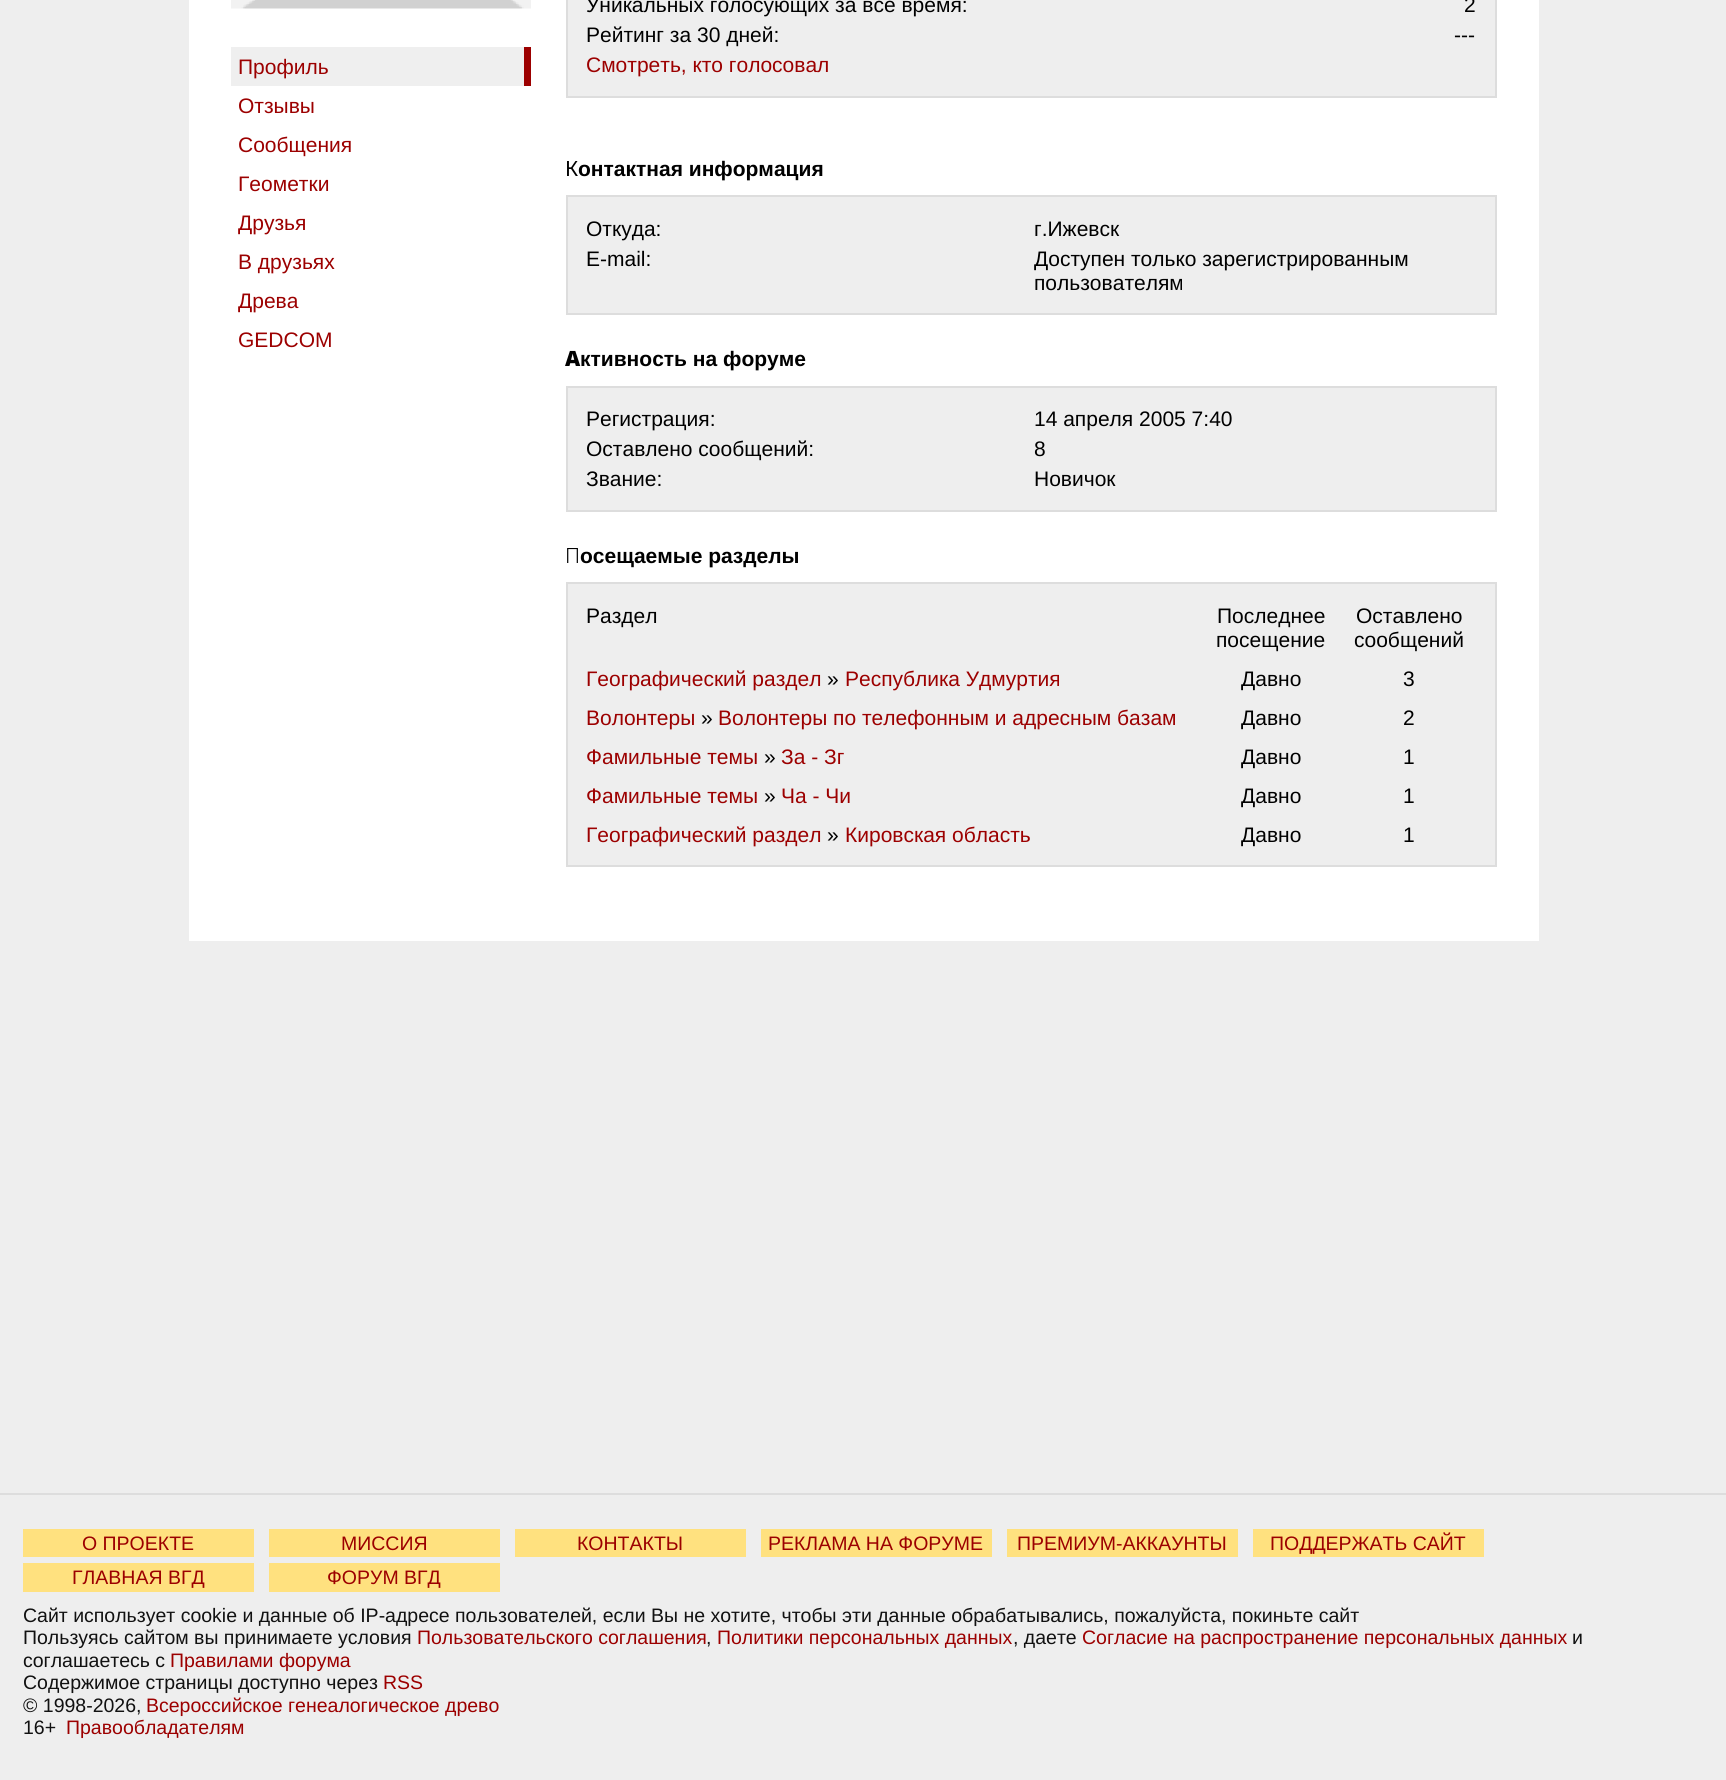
import math
import cairo

surface = cairo.ImageSurface(cairo.FORMAT_RGB24, 1726, 1780)
c = cairo.Context(surface)
options = cairo.FontOptions()
options.set_hint_metrics(cairo.HINT_METRICS_OFF)
options.set_hint_style(cairo.HINT_STYLE_NONE)
c.set_font_options(options)
c.set_miter_limit(4)
def C(code):
 c.set_source_rgb(*(v / 255 for v in bytes.fromhex(code[-6:])))
def F(family, size, italic, bold):
 c.select_font_face(family, cairo.FONT_SLANT_ITALIC if italic else cairo.FONT_SLANT_NORMAL, cairo.FONT_WEIGHT_BOLD if bold else cairo.FONT_WEIGHT_NORMAL)
 c.set_font_size(size)
def T(x, y, s):
 c.move_to(x, y)
 c.show_text(s)
def R(x, y, w, h):
 c.rectangle(x, y, w, h)
 c.fill()
def I(path, x, y, w, h):
 c.save()
 c.set_source_surface(cairo.ImageSurface.create_from_png(path), x, y)
 c.rectangle(x, y, w, h)
 c.fill()
 c.restore()
C('eeeeee')
c.paint()
C('ffffff')
R(189,0,1350,941)
I('1.png',231,0,300,9)
C('efefef')
R(231,47,293,39)
C('9c0000')
R(524,47,7,39)
F('Liberation Sans',21,0,0)
T(238,74,'Профиль')
T(238,113,'Отзывы')
T(238,152,'Сообщения')
T(238,191,'Геометки')
T(238,230,'Друзья')
T(238,269,'В друзьях')
T(238,308,'Древа')
T(238,347,'GEDCOM')
C('eeeeee')
c.rectangle(567,-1,929,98)
c.fill_preserve()
C('dddddd')
c.stroke()
C('000000')
T(586,12,'Уникальных голосующих за все время:')
T(1464,12,'2')
T(586,42,'Рейтинг за 30 дней:')
T(1454,42,'---')
C('9c0000')
T(586,72,'Cмотреть, кто голосовал')
F('Noto Sans',21,0,0)
C('000000')
T(565,176,'К')
F('Liberation Sans',21,0,1)
T(578,176,'онтактная информация')
C('eeeeee')
c.rectangle(567,196,929,118)
c.fill_preserve()
C('dddddd')
c.stroke()
F('Liberation Sans',21,0,0)
C('000000')
T(586,236,'Откуда:')
T(1034,236,'г.Ижевск')
T(586,266,'E-mail:')
T(1034,266,'Доступен только зарегистрированным')
T(1034,290,'пользователям')
F('Noto Sans Black',21,0,0)
T(565,366,'А')
F('Liberation Sans',21,0,1)
T(580,366,'ктивность на форуме')
C('eeeeee')
c.rectangle(567,387,929,124)
c.fill_preserve()
C('dddddd')
c.stroke()
F('Liberation Sans',21,0,0)
C('000000')
T(586,426,'Регистрация:')
T(1034,426,'14 апреля 2005 7:40')
T(586,456,'Оставлено сообщений:')
T(1034,456,'8')
T(586,486,'Звание:')
T(1034,486,'Новичок')
F('Noto Sans Light',21,0,0)
T(565,563,'П')
F('Liberation Sans',21,0,1)
T(580,563,'осещаемые разделы')
C('eeeeee')
c.rectangle(567,583,929,283)
c.fill_preserve()
C('dddddd')
c.stroke()
F('Liberation Sans',21,0,0)
C('000000')
T(586,623,'Раздел')
T(1217,623,'Последнее')
T(1216,647,'посещение')
T(1356,623,'Оставлено')
T(1354,647,'сообщений')
C('9c0000')
T(586,686,'Географический раздел')
C('000000')
T(827,686,'»')
C('9c0000')
T(845,686,'Республика Удмуртия')
C('000000')
T(1241,686,'Давно')
T(1403,686,'3')
C('9c0000')
T(586,725,'Волонтеры')
C('000000')
T(701,725,'»')
C('9c0000')
T(718,725,'Волонтеры по телефонным и адресным базам')
C('000000')
T(1241,725,'Давно')
T(1403,725,'2')
C('9c0000')
T(586,764,'Фамильные темы')
C('000000')
T(764,764,'»')
C('9c0000')
T(781,764,'За - Зг')
C('000000')
T(1241,764,'Давно')
T(1403,764,'1')
C('9c0000')
T(586,803,'Фамильные темы')
C('000000')
T(764,803,'»')
C('9c0000')
T(781,803,'Ча - Чи')
C('000000')
T(1241,803,'Давно')
T(1403,803,'1')
C('9c0000')
T(586,842,'Географический раздел')
C('000000')
T(827,842,'»')
C('9c0000')
T(845,842,'Кировская область')
C('000000')
T(1241,842,'Давно')
T(1403,842,'1')
C('dddddd')
R(0,1493,1726,2)
C('ffe17f')
R(23,1529,231,28)
F('Liberation Sans',19.5,0,0)
C('9c0000')
T(82,1550,'О ПРОЕКТЕ')
C('ffe17f')
R(269,1529,231,28)
C('9c0000')
T(341,1550,'МИССИЯ')
C('ffe17f')
R(515,1529,231,28)
C('9c0000')
T(577,1550,'КОНТАКТЫ')
C('ffe17f')
R(761,1529,231,28)
C('9c0000')
T(768,1550,'РЕКЛАМА НА ФОРУМЕ')
C('ffe17f')
R(1007,1529,231,28)
C('9c0000')
T(1017,1550,'ПРЕМИУМ-АККАУНТЫ')
C('ffe17f')
R(1253,1529,231,28)
C('9c0000')
T(1270,1550,'ПОДДЕРЖАТЬ САЙТ')
C('ffe17f')
R(23,1563,231,29)
C('9c0000')
T(72,1584,'ГЛАВНАЯ ВГД')
C('ffe17f')
R(269,1563,231,29)
C('9c0000')
T(327,1584,'ФОРУМ ВГД')
C('111111')
T(23,1622,'Сайт использует cookie и данные об IP-адресе пользователей, если Вы не хотите, чтобы эти данные обрабатывались, пожалуйста, покиньте сайт')
T(23,1644,'Пользуясь сайтом вы принимаете условия')
C('9c0000')
T(417,1644,'Пользовательского соглашения')
C('111111')
T(706,1644,',')
C('9c0000')
T(717,1644,'Политики персональных данных')
C('111111')
T(1013,1644,', даете')
C('9c0000')
T(1082,1644,'Согласие на распространение персональных данных')
C('111111')
T(1572,1644,'и')
T(23,1667,'соглашаетесь с')
C('9c0000')
T(170,1667,'Правилами форума')
C('111111')
T(23,1689,'Содержимое страницы доступно через')
C('9c0000')
T(383,1689,'RSS')
C('111111')
T(23,1712,'© 1998-2026,')
C('9c0000')
T(146,1712,'Всероссийское генеалогическое древо')
C('111111')
T(23,1734,'16+')
C('9c0000')
T(66,1734,'Правообладателям')
surface.write_to_png('o.png')
